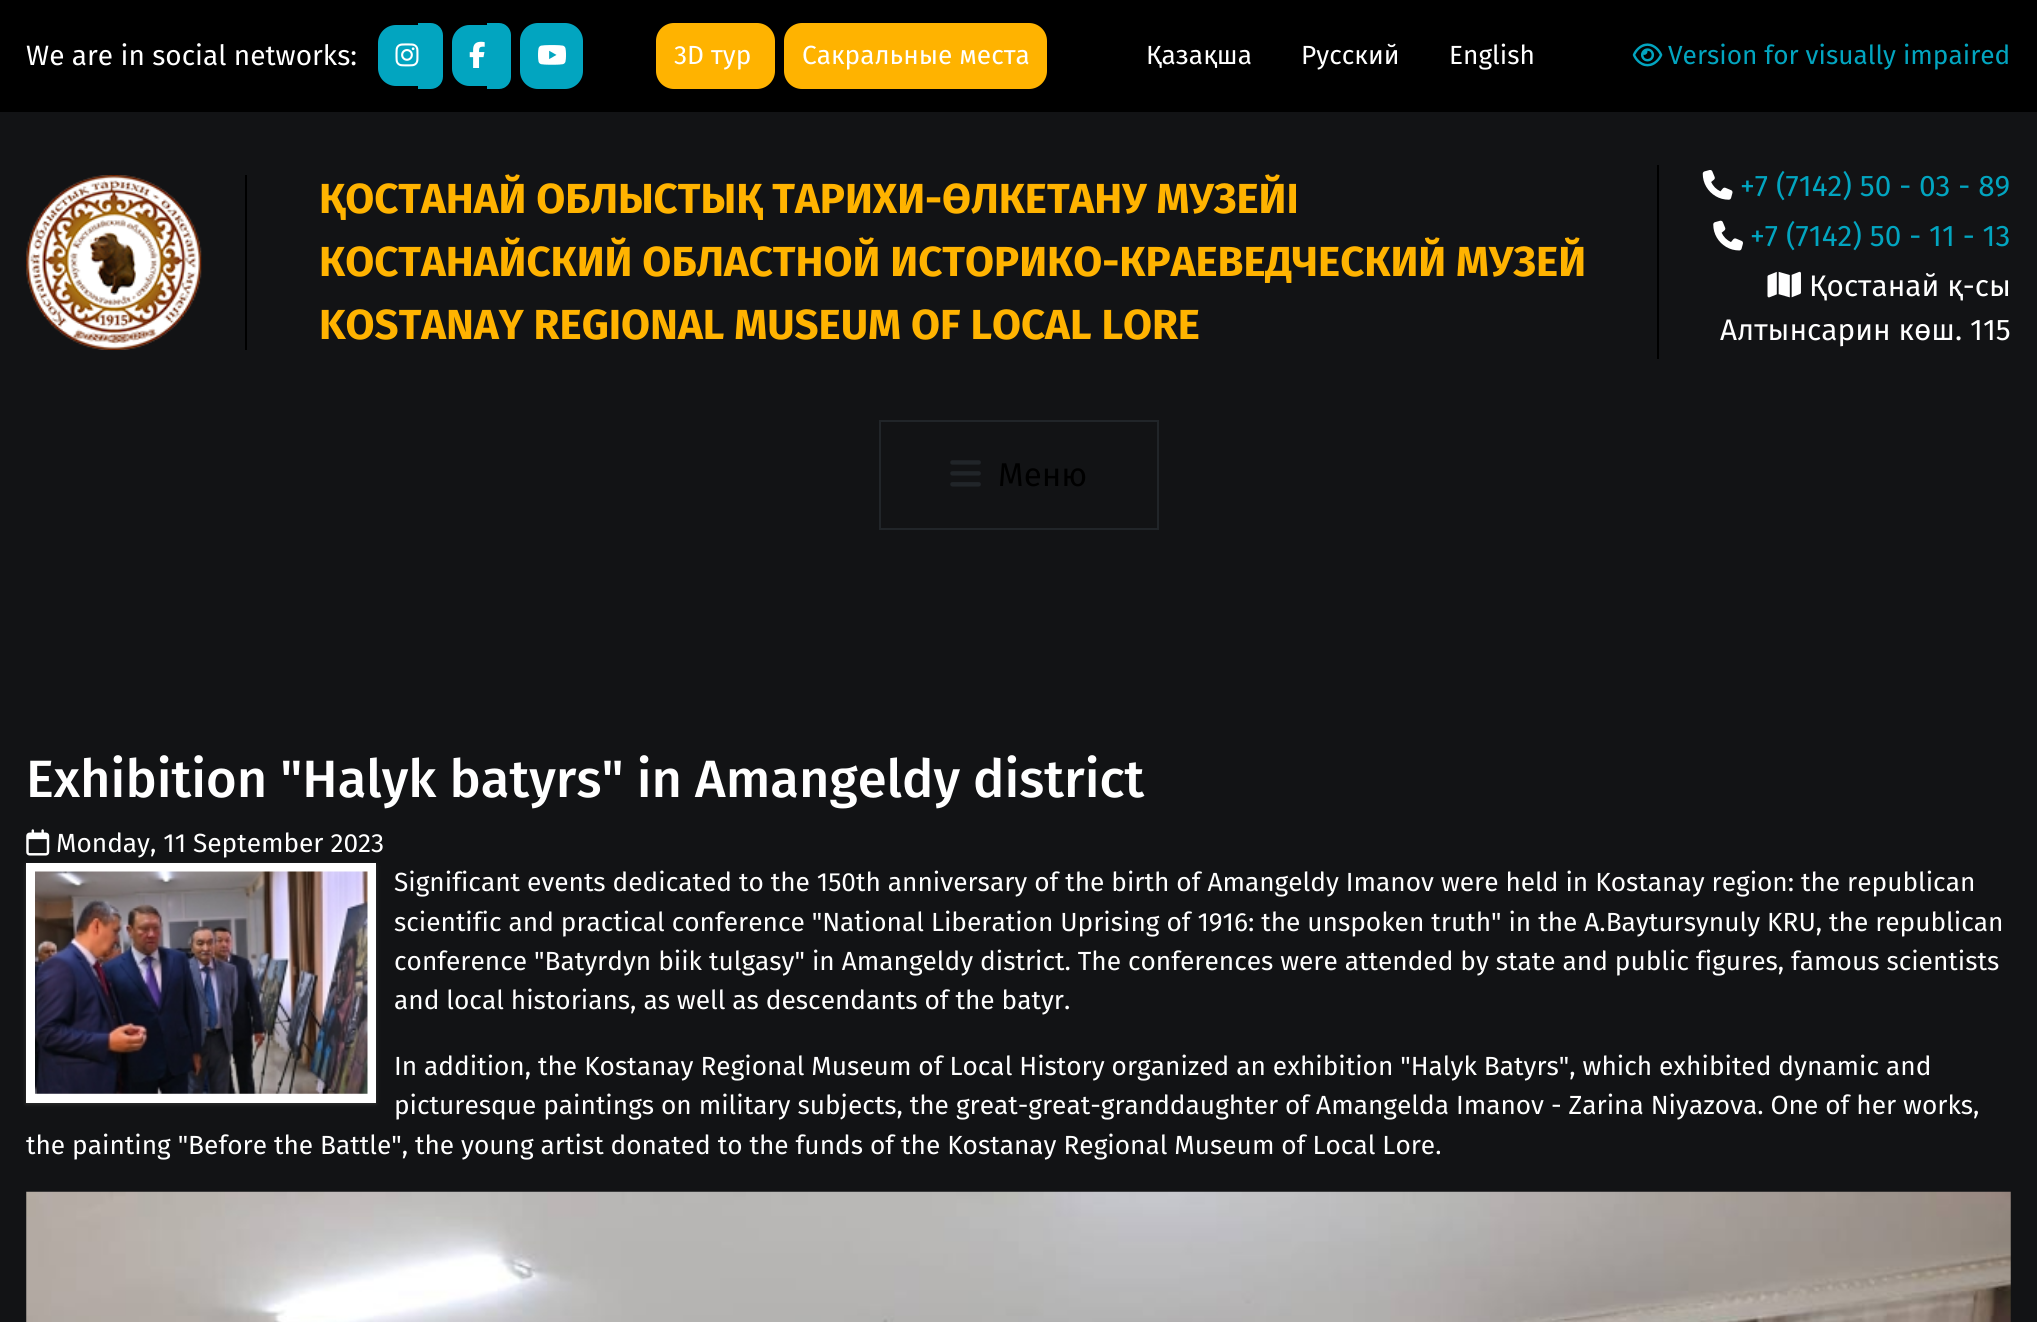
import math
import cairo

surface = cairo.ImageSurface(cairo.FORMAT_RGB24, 2037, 1322)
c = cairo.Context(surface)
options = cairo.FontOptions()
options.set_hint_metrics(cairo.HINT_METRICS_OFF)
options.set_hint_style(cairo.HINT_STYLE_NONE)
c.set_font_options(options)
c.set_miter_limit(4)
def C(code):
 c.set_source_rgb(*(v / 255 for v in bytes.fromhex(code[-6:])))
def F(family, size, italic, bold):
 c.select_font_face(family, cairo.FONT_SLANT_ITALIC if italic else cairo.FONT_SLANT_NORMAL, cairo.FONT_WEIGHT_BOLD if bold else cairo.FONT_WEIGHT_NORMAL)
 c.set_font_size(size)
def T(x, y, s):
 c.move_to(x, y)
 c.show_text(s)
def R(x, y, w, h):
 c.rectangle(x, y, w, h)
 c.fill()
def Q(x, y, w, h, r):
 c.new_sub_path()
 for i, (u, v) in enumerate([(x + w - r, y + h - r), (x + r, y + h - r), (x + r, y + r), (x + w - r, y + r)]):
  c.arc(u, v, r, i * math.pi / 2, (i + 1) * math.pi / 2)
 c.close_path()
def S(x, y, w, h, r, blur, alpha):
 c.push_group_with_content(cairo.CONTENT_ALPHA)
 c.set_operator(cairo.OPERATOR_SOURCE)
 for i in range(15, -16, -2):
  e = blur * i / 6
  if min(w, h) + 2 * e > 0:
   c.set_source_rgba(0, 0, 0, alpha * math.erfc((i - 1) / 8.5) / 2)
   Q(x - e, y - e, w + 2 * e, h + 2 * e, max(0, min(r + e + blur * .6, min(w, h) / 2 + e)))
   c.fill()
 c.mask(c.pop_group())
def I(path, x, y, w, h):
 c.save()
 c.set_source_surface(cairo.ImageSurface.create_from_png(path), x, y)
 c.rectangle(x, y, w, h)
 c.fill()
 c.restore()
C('121315')
c.paint()
C('000000')
R(0,0,2037,112)
F('Fira Sans',28,0,0)
C('ffffff')
T(26,65,'We are in social networks:')
C('02a5c0')
c.new_path()
c.move_to(396,25)
c.line_to(418,25)
c.line_to(418,86)
c.line_to(396,86)
c.curve_to(386,86,378,78,378,68)
c.line_to(378,43)
c.curve_to(378,33,386,25,396,25)
c.close_path()
c.fill()
c.new_path()
c.move_to(418,23)
c.line_to(430.5,23)
c.curve_to(437.5,23,443,28.5,443,35.5)
c.line_to(443,76.5)
c.curve_to(443,83.5,437.5,89,430.5,89)
c.line_to(418,89)
c.close_path()
c.fill()
I('1.png',395,43,24,24)
c.new_path()
c.move_to(469.5,25)
c.line_to(487,25)
c.line_to(487,86)
c.line_to(469.5,86)
c.curve_to(460,86,452,78,452,68.5)
c.line_to(452,42.5)
c.curve_to(452,33,460,25,469.5,25)
c.close_path()
c.fill()
c.new_path()
c.move_to(487,23)
c.line_to(499,23)
c.curve_to(505.5,23,511,28.5,511,35)
c.line_to(511,77)
c.curve_to(511,83.5,505.5,89,499,89)
c.line_to(487,89)
c.close_path()
c.fill()
I('2.png',469,41,16,27)
Q(520,23,63,66,18)
c.fill()
I('3.png',538,45,28,20)
C('ffb300')
Q(656,23,119,66,18)
c.fill()
F('Fira Sans',26.25,0,0)
C('ffffff')
T(674,64,'3D тур')
C('ffb300')
Q(784,23,263,66,18)
c.fill()
C('ffffff')
T(802,64,'Сакральные места')
T(1146,64,'Қазақша')
T(1301,64,'Русский')
T(1449,64,'English')
I('4.png',1632,43,31,24)
C('02a5c0')
T(1668,64,'Version for visually impaired')
I('5.png',26,175,176,175)
C('000000')
R(245,175,2,175)
F('Fira Sans',42,0,1)
C('ffb300')
T(319,213,'ҚОСТАНАЙ ОБЛЫСТЫҚ ТАРИХИ-ӨЛКЕТАНУ МУЗЕЙІ')
T(319,276,'КОСТАНАЙСКИЙ ОБЛАСТНОЙ ИСТОРИКО-КРАЕВЕДЧЕСКИЙ МУЗЕЙ')
T(319,339,'KOSTANAY REGIONAL MUSEUM OF LOCAL LORE')
C('000000')
R(1657,165,2,194)
I('6.png',1702,170,31,30)
F('Fira Sans',29.75,0,0)
C('02a5c0')
T(1740,196,'+7 (7142) 50 - 03 - 89')
I('7.png',1713,220,30,31)
T(1750,246,'+7 (7142) 50 - 11 - 13')
I('8.png',1767,271,34,27)
C('ffffff')
T(1809,296,'Қостанай қ-сы')
T(1720,340,'Алтынсарин көш. 115')
c.rectangle(880,421,278,108)
C('212529')
c.stroke()
I('9.png',950,460,31,27)
F('Fira Sans',33,0,0)
C('000000')
T(998,486,'Меню')
F('Fira Sans Medium',52.5,0,0)
C('ffffff')
T(26,797,'Exhibition "Halyk batyrs" in Amangeldy district')
I('10.png',26,829,24,27)
F('Fira Sans',26.25,0,0)
T(56,852,'Monday, 11 September 2023')
C('333333')
S(26,865,350,239,0,2,1)
C('ffffff')
R(26,863,350,240)
I('11.png',35,871,333,223)
T(394,891,'Significant events dedicated to the 150th anniversary of the birth of Amangeldy Imanov were held in Kostanay region: the republican')
T(394,931,'scientific and practical conference "National Liberation Uprising of 1916: the unspoken truth" in the A.Baytursynuly KRU, the republican')
T(394,970,'conference "Batyrdyn biik tulgasy" in Amangeldy district. The conferences were attended by state and public figures, famous scientists')
T(394,1009,'and local historians, as well as descendants of the batyr.')
T(394,1075,'In addition, the Kostanay Regional Museum of Local History organized an exhibition "Halyk Batyrs", which exhibited dynamic and')
T(394,1114,'picturesque paintings on military subjects, the great-great-granddaughter of Amangelda Imanov - Zarina Niyazova. One of her works,')
T(26,1154,'the painting "Before the Battle", the young artist donated to the funds of the Kostanay Regional Museum of Local Lore.')
I('12.png',26,1191,1985,131)
surface.write_to_png('o.png')
